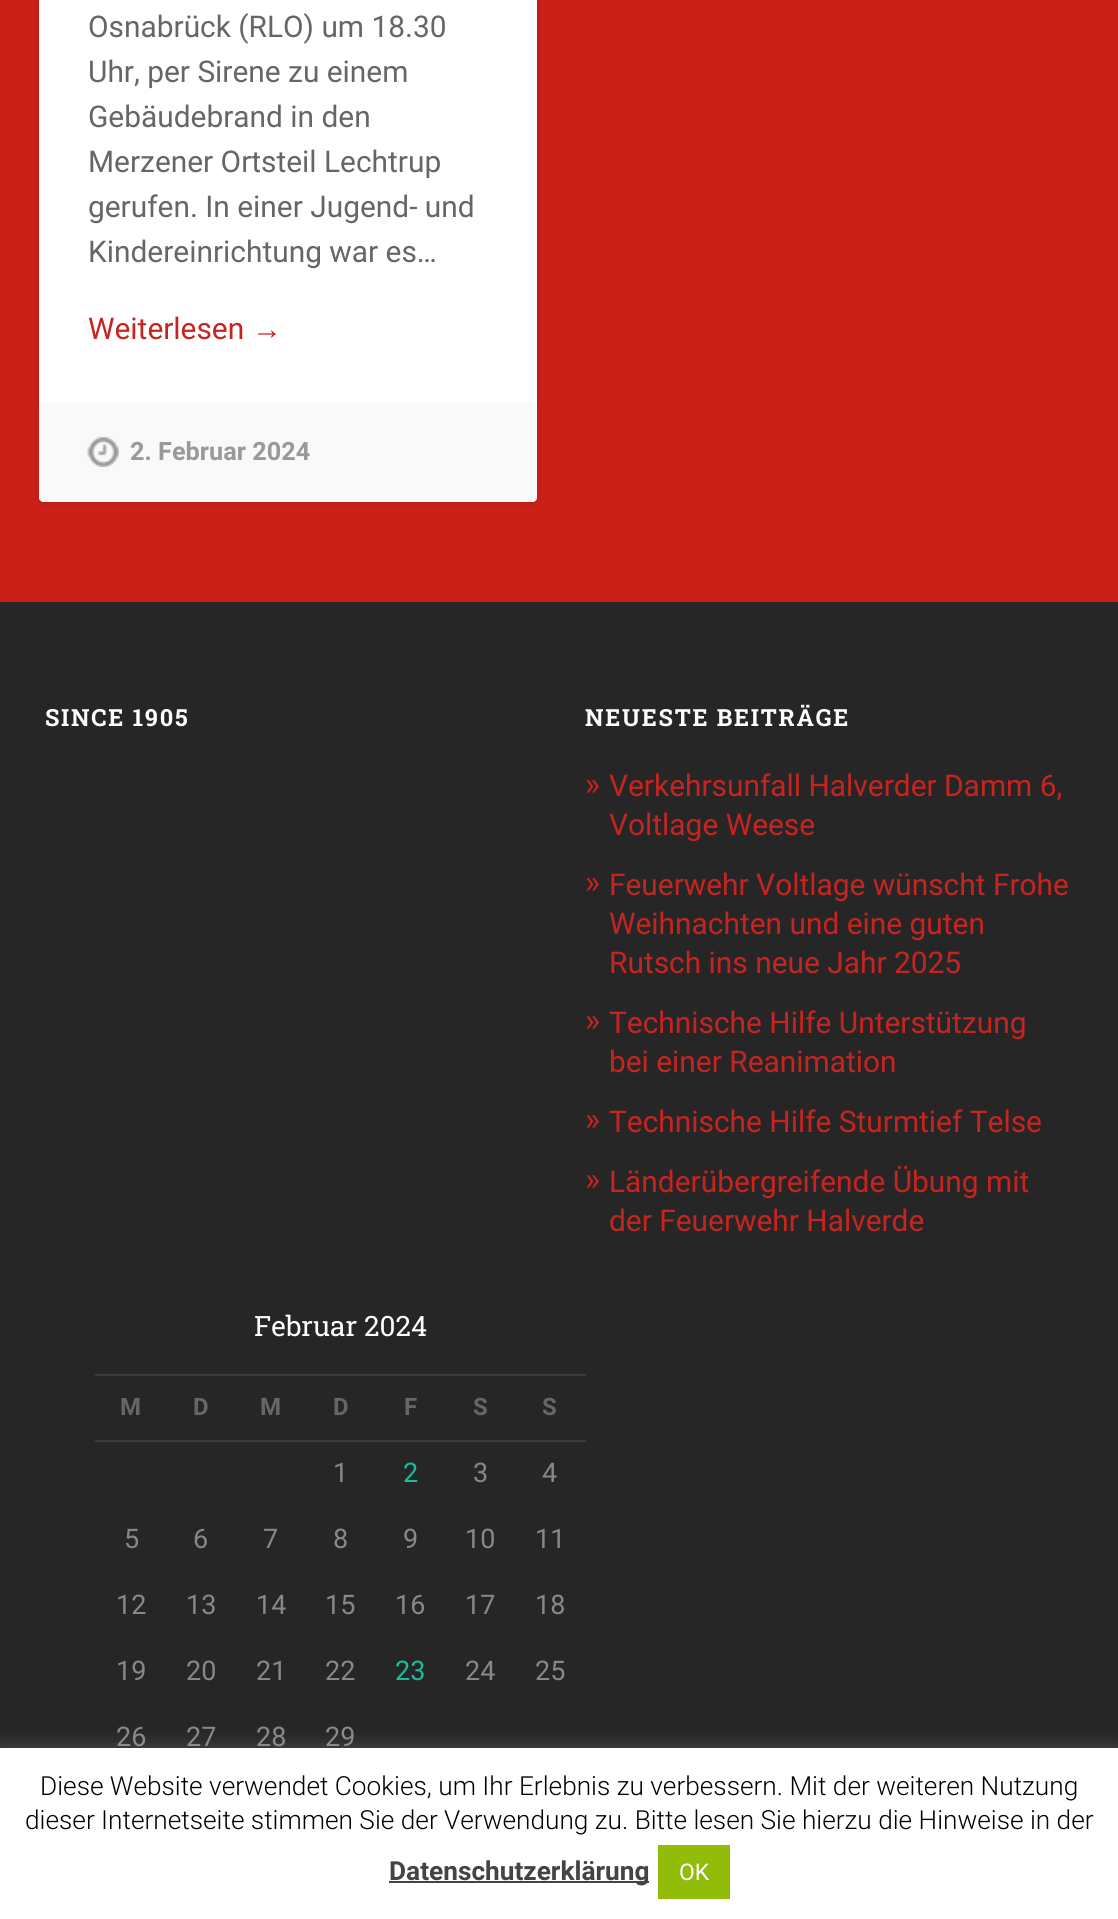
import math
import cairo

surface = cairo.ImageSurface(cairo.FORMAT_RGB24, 1118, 1919)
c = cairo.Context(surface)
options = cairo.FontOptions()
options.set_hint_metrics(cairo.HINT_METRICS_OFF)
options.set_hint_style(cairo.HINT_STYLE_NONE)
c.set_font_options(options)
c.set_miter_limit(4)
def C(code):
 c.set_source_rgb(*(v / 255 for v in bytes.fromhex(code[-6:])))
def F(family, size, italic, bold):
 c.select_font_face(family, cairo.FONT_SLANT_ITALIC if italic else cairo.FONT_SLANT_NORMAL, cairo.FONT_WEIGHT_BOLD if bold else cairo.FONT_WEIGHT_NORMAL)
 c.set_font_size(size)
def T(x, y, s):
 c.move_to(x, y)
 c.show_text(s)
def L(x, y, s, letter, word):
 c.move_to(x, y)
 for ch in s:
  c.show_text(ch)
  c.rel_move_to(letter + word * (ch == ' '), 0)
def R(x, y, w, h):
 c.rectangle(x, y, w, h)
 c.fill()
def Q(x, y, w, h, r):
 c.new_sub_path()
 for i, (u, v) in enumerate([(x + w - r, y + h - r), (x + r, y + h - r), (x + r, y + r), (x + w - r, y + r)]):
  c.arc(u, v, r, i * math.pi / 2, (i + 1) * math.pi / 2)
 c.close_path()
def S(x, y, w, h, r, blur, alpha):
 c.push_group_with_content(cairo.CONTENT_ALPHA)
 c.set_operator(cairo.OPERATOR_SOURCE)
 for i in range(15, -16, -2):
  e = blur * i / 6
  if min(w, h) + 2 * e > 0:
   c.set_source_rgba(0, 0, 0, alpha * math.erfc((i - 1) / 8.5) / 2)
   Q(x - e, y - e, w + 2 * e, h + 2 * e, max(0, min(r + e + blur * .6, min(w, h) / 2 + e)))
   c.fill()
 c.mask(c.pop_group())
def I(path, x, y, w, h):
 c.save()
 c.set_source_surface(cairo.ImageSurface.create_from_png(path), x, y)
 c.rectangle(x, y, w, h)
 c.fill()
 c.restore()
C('ca2017')
c.paint()
C('000000')
S(39,-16,498,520,5,3.5,.1)
C('ffffff')
Q(39,-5,498,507,5)
c.fill()
F('Roboto',29.9,0,0)
C('666666')
T(88,37,'Osnabrück (RLO) um 18.30')
T(88,82,'Uhr, per Sirene zu einem')
T(88,127,'Gebäudebrand in den')
T(88,172,'Merzener Ortsteil Lechtrup')
T(88,217,'gerufen. In einer Jugend- und')
T(88,262,'Kindereinrichtung war es…')
C('c62420')
T(88,339,'Weiterlesen')
F('Liberation Sans',29.9,0,0)
T(252,339,'→')
C('f9f9f9')
c.new_path()
c.move_to(39,403)
c.line_to(537,403)
c.line_to(537,497)
c.curve_to(537,500,535,502,532,502)
c.line_to(44,502)
c.curve_to(41,502,39,500,39,497)
c.close_path()
c.fill()
I('1.png',87,437,32,30)
F('Roboto',25.25,0,1)
C('999999')
T(130,460,'2. Februar 2024')
C('262626')
R(0,602,1118,1146)
F('Roboto Slab',23.6,0,1)
C('ffffff')
L(45,726,'SINCE 1905',1.75,0)
L(585,726,'NEUESTE BEITRÄGE',1.75,0)
F('Roboto',32,0,0)
C('c62420')
T(585,795,'»')
F('Roboto',29.9,0,0)
T(609,796,'Verkehrsunfall Halverder Damm 6,')
T(609,835,'Voltlage Weese')
F('Roboto',32,0,0)
T(585,893,'»')
F('Roboto',29.9,0,0)
T(609,895,'Feuerwehr Voltlage wünscht Frohe')
T(609,934,'Weihnachten und eine guten')
T(609,973,'Rutsch ins neue Jahr 2025')
F('Roboto',32,0,0)
T(585,1031,'»')
F('Roboto',29.9,0,0)
T(609,1033,'Technische Hilfe Unterstützung')
T(609,1072,'bei einer Reanimation')
F('Roboto',32,0,0)
T(585,1130,'»')
F('Roboto',29.9,0,0)
T(609,1132,'Technische Hilfe Sturmtief Telse')
F('Roboto',32,0,0)
T(585,1190,'»')
F('Roboto',29.9,0,0)
T(609,1192,'Länderübergreifende Übung mit')
T(609,1231,'der Feuerwehr Halverde')
F('Roboto Slab',28,0,0)
C('ffffff')
T(254,1336,'Februar 2024')
F('Roboto',24,0,1)
C('666666')
T(120,1415,'M')
T(193,1415,'D')
T(260,1415,'M')
T(333,1415,'D')
T(404,1415,'F')
T(473,1415,'S')
C('3b3b3b')
R(95,1374,491,2)
R(95,1440,491,2)
C('666666')
T(542,1415,'S')
F('Roboto',27,0,0)
C('888888')
T(333,1482,'1')
C('1abc9c')
T(403,1482,'2')
C('888888')
T(473,1482,'3')
T(542,1482,'4')
T(124,1548,'5')
T(193,1548,'6')
T(263,1548,'7')
T(333,1548,'8')
T(403,1548,'9')
T(465,1548,'10')
T(535,1548,'11')
T(116,1614,'12')
T(186,1614,'13')
T(256,1614,'14')
T(325,1614,'15')
T(395,1614,'16')
T(465,1614,'17')
T(535,1614,'18')
T(116,1680,'19')
T(186,1680,'20')
T(256,1680,'21')
T(325,1680,'22')
C('1abc9c')
T(395,1680,'23')
C('888888')
T(465,1680,'24')
T(535,1680,'25')
T(116,1746,'26')
T(186,1746,'27')
T(256,1746,'28')
T(325,1746,'29')
C('acabab')
S(0,1747,1118,171,0,9,.3)
C('ffffff')
R(0,1748,1118,171)
F('Roboto Light',26.25,0,0)
C('000000')
T(40,1795,'Diese Website verwendet Cookies, um Ihr Erlebnis zu verbessern. Mit der weiteren Nutzung')
T(25,1829,'dieser Internetseite stimmen Sie der Verwendung zu. Bitte lesen Sie hierzu die Hinweise in der')
C('444444')
R(389,1881,260,2)
F('Roboto',26.25,0,1)
T(389,1880,'Datenschutzerklärung')
C('91bd09')
R(658,1845,72,54)
F('Roboto',23,0,0)
C('ffffff')
T(679,1880,'OK')
surface.write_to_png('o.png')
